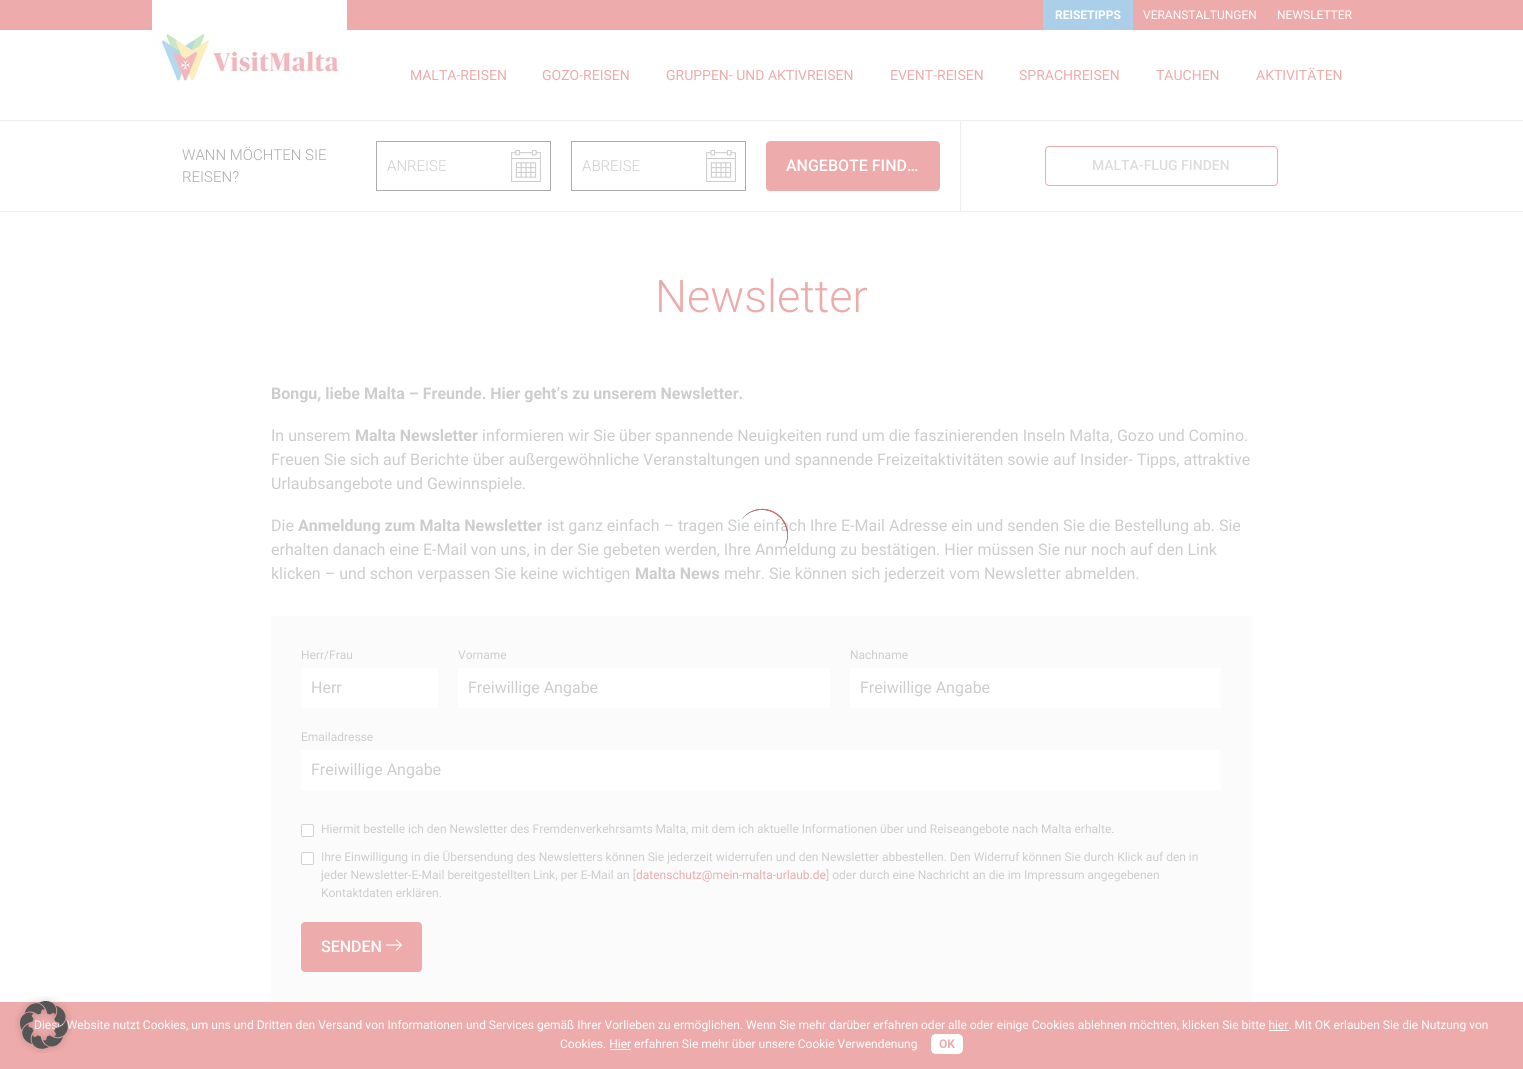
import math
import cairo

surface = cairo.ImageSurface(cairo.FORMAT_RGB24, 1523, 1069)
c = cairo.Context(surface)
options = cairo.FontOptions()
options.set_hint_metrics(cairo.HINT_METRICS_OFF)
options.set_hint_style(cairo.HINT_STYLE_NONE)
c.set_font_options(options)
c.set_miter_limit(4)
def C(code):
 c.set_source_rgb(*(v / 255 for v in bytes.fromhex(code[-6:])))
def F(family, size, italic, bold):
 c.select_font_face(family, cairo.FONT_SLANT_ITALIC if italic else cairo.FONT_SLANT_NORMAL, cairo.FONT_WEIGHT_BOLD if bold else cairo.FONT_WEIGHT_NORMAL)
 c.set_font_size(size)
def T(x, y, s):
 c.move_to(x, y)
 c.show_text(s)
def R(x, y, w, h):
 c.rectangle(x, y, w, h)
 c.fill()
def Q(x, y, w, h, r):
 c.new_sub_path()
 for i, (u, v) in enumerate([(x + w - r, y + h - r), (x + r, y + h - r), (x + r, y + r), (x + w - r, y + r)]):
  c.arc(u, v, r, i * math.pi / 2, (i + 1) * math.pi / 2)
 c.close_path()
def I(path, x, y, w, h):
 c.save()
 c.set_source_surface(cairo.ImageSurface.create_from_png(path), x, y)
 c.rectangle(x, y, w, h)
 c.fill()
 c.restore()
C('ffffff')
c.paint()
C('eeabab')
R(0,0,1523,30)
C('abcee9')
R(1043,0,90,30)
F('Roboto',12,0,1)
C('ffffff')
T(1055,19,'REISETIPPS')
F('Roboto',12,0,0)
T(1143,19,'VERANSTALTUNGEN')
T(1277,19,'NEWSLETTER')
R(152,0,195,30)
I('1.png',152,32,192,56)
F('Roboto',14,0,0)
C('eeabab')
T(410,80,'MALTA-REISEN')
T(542,80,'GOZO-REISEN')
T(666,80,'GRUPPEN- UND AKTIVREISEN')
T(890,80,'EVENT-REISEN')
T(1019,80,'SPRACHREISEN')
T(1156,80,'TAUCHEN')
T(1256,80,'AKTIVITÄTEN')
C('eeeeee')
R(0,120,1523,1)
R(0,211,1523,1)
R(960,121,1,90)
F('Roboto Light',15,0,0)
C('ababab')
T(182,160,'WANN MÖCHTEN SIE')
T(182,182,'REISEN?')
c.rectangle(376.5,141.5,174,49)
c.set_line_width(1)
c.stroke()
C('cdcdcd')
T(387,171,'ANREISE')
I('2.png',511,150,30,32)
c.rectangle(571.5,141.5,174,49)
C('ababab')
c.stroke()
C('cdcdcd')
T(582,171,'ABREISE')
I('2.png',706,150,30,32)
C('eeabab')
Q(766,141,174,50,4)
c.fill()
F('Roboto Medium',16,0,0)
C('ffffff')
T(786,171,'ANGEBOTE FIND…')
Q(1045.5,146.5,232,39,3.5)
C('eeabab')
c.stroke()
F('Roboto Medium',14,0,0)
C('dddddd')
T(1092,170,'MALTA-FLUG FINDEN')
F('Roboto Light',45,0,0)
C('eeabab')
T(655,312,'Newsletter')
F('Roboto',16,0,1)
C('cdcdcd')
T(271,399,'Bongu, liebe Malta – Freunde. Hier geht’s zu unserem Newsletter.')
F('Roboto',16,0,0)
T(271,441,'In unserem')
F('Roboto',16,0,1)
T(355,441,'Malta Newsletter')
F('Roboto',16,0,0)
T(482,441,'informieren wir Sie über spannende Neuigkeiten rund um die faszinierenden Inseln Malta, Gozo und Comino.')
T(271,465,'Freuen Sie sich auf Berichte über außergewöhnliche Veranstaltungen und spannende Freizeitaktivitäten sowie auf Insider- Tipps, attraktive')
T(271,489,'Urlaubsangebote und Gewinnspiele.')
T(271,531,'Die')
F('Roboto',16,0,1)
T(298,531,'Anmeldung zum Malta Newsletter')
F('Roboto',16,0,0)
T(547,531,'ist ganz einfach – tragen Sie einfach Ihre E-Mail Adresse ein und senden Sie die Bestellung ab. Sie')
T(271,555,'erhalten danach eine E-Mail von uns, in der Sie gebeten werden, Ihre Anmeldung zu bestätigen. Hier müssen Sie nur noch auf den Link')
T(271,579,'klicken – und schon verpassen Sie keine wichtigen')
F('Roboto',16,0,1)
T(635,579,'Malta News')
F('Roboto',16,0,0)
T(724,579,'mehr. Sie können sich jederzeit vom Newsletter abmelden.')
C('fbfbfb')
R(271,616,980,386)
F('Roboto',12,0,0)
C('cdcdcd')
T(301,659,'Herr/Frau')
C('ffffff')
R(301,668,137,40)
F('Roboto',16,0,0)
C('cdcdcd')
T(311,693,'Herr')
F('Roboto',12,0,0)
T(458,659,'Vorname')
C('ffffff')
R(458,668,372,40)
F('Roboto',16,0,0)
C('cdcdcd')
T(468,693,'Freiwillige Angabe')
F('Roboto',12,0,0)
T(850,659,'Nachname')
C('ffffff')
R(850,668,371,40)
F('Roboto',16,0,0)
C('cdcdcd')
T(860,693,'Freiwillige Angabe')
F('Roboto',12,0,0)
T(301,741,'Emailadresse')
C('ffffff')
R(301,750,920,40)
F('Roboto',16,0,0)
C('cdcdcd')
T(311,775,'Freiwillige Angabe')
C('ffffff')
Q(301.5,824.5,12,12,1.5)
c.fill_preserve()
C('d2d2d2')
c.stroke()
F('Roboto',12,0,0)
C('cdcdcd')
T(321,833,'Hiermit bestelle ich den Newsletter des Fremdenverkehrsamts Malta, mit dem ich aktuelle Informationen über und Reiseangebote nach Malta erhalte.')
C('ffffff')
Q(301.5,852.5,12,12,1.5)
c.fill_preserve()
C('d2d2d2')
c.stroke()
C('cdcdcd')
T(321,861,'Ihre Einwilligung in die Übersendung des Newsletters können Sie jederzeit widerrufen und den Newsletter abbestellen. Den Widerruf können Sie durch Klick auf den in')
T(321,879,'jeder Newsletter-E-Mail bereitgestellten Link, per E-Mail an [')
C('eeabab')
T(636,879,'datenschutz@mein-malta-urlaub.de')
C('cdcdcd')
T(826,879,'] oder durch eine Nachricht an die im Impressum angegebenen')
T(321,897,'Kontaktdaten erklären.')
C('eeabab')
Q(301,922,121,50,4)
c.fill()
F('Roboto Medium',16,0,0)
C('ffffff')
T(321,952,'SENDEN')
I('3.png',386,939,16,12)
I('4.png',742,508,46,41)
C('eeabab')
R(0,1002,1523,67)
F('Roboto',12,0,0)
C('ffffff')
T(34,1029,'Diese Website nutzt Cookies, um uns und Dritten den Versand von Informationen und Services gemäß Ihrer Vorlieben zu ermöglichen. Wenn Sie mehr darüber erfahren oder alle oder einige Cookies ablehnen möchten, klicken Sie bitte hier. Mit OK erlauben Sie die Nutzung von')
I('5.png',15,996,57,57)
R(1269,1030,20,1)
T(560,1048,'Cookies. Hier erfahren Sie mehr über unsere Cookie Verwendenung')
Q(931,1034,32,20,5)
c.fill()
F('Roboto',12,0,1)
C('eeabab')
T(939,1048,'OK')
C('ffffff')
R(610,1049,21,1)
surface.write_to_png('o.png')
